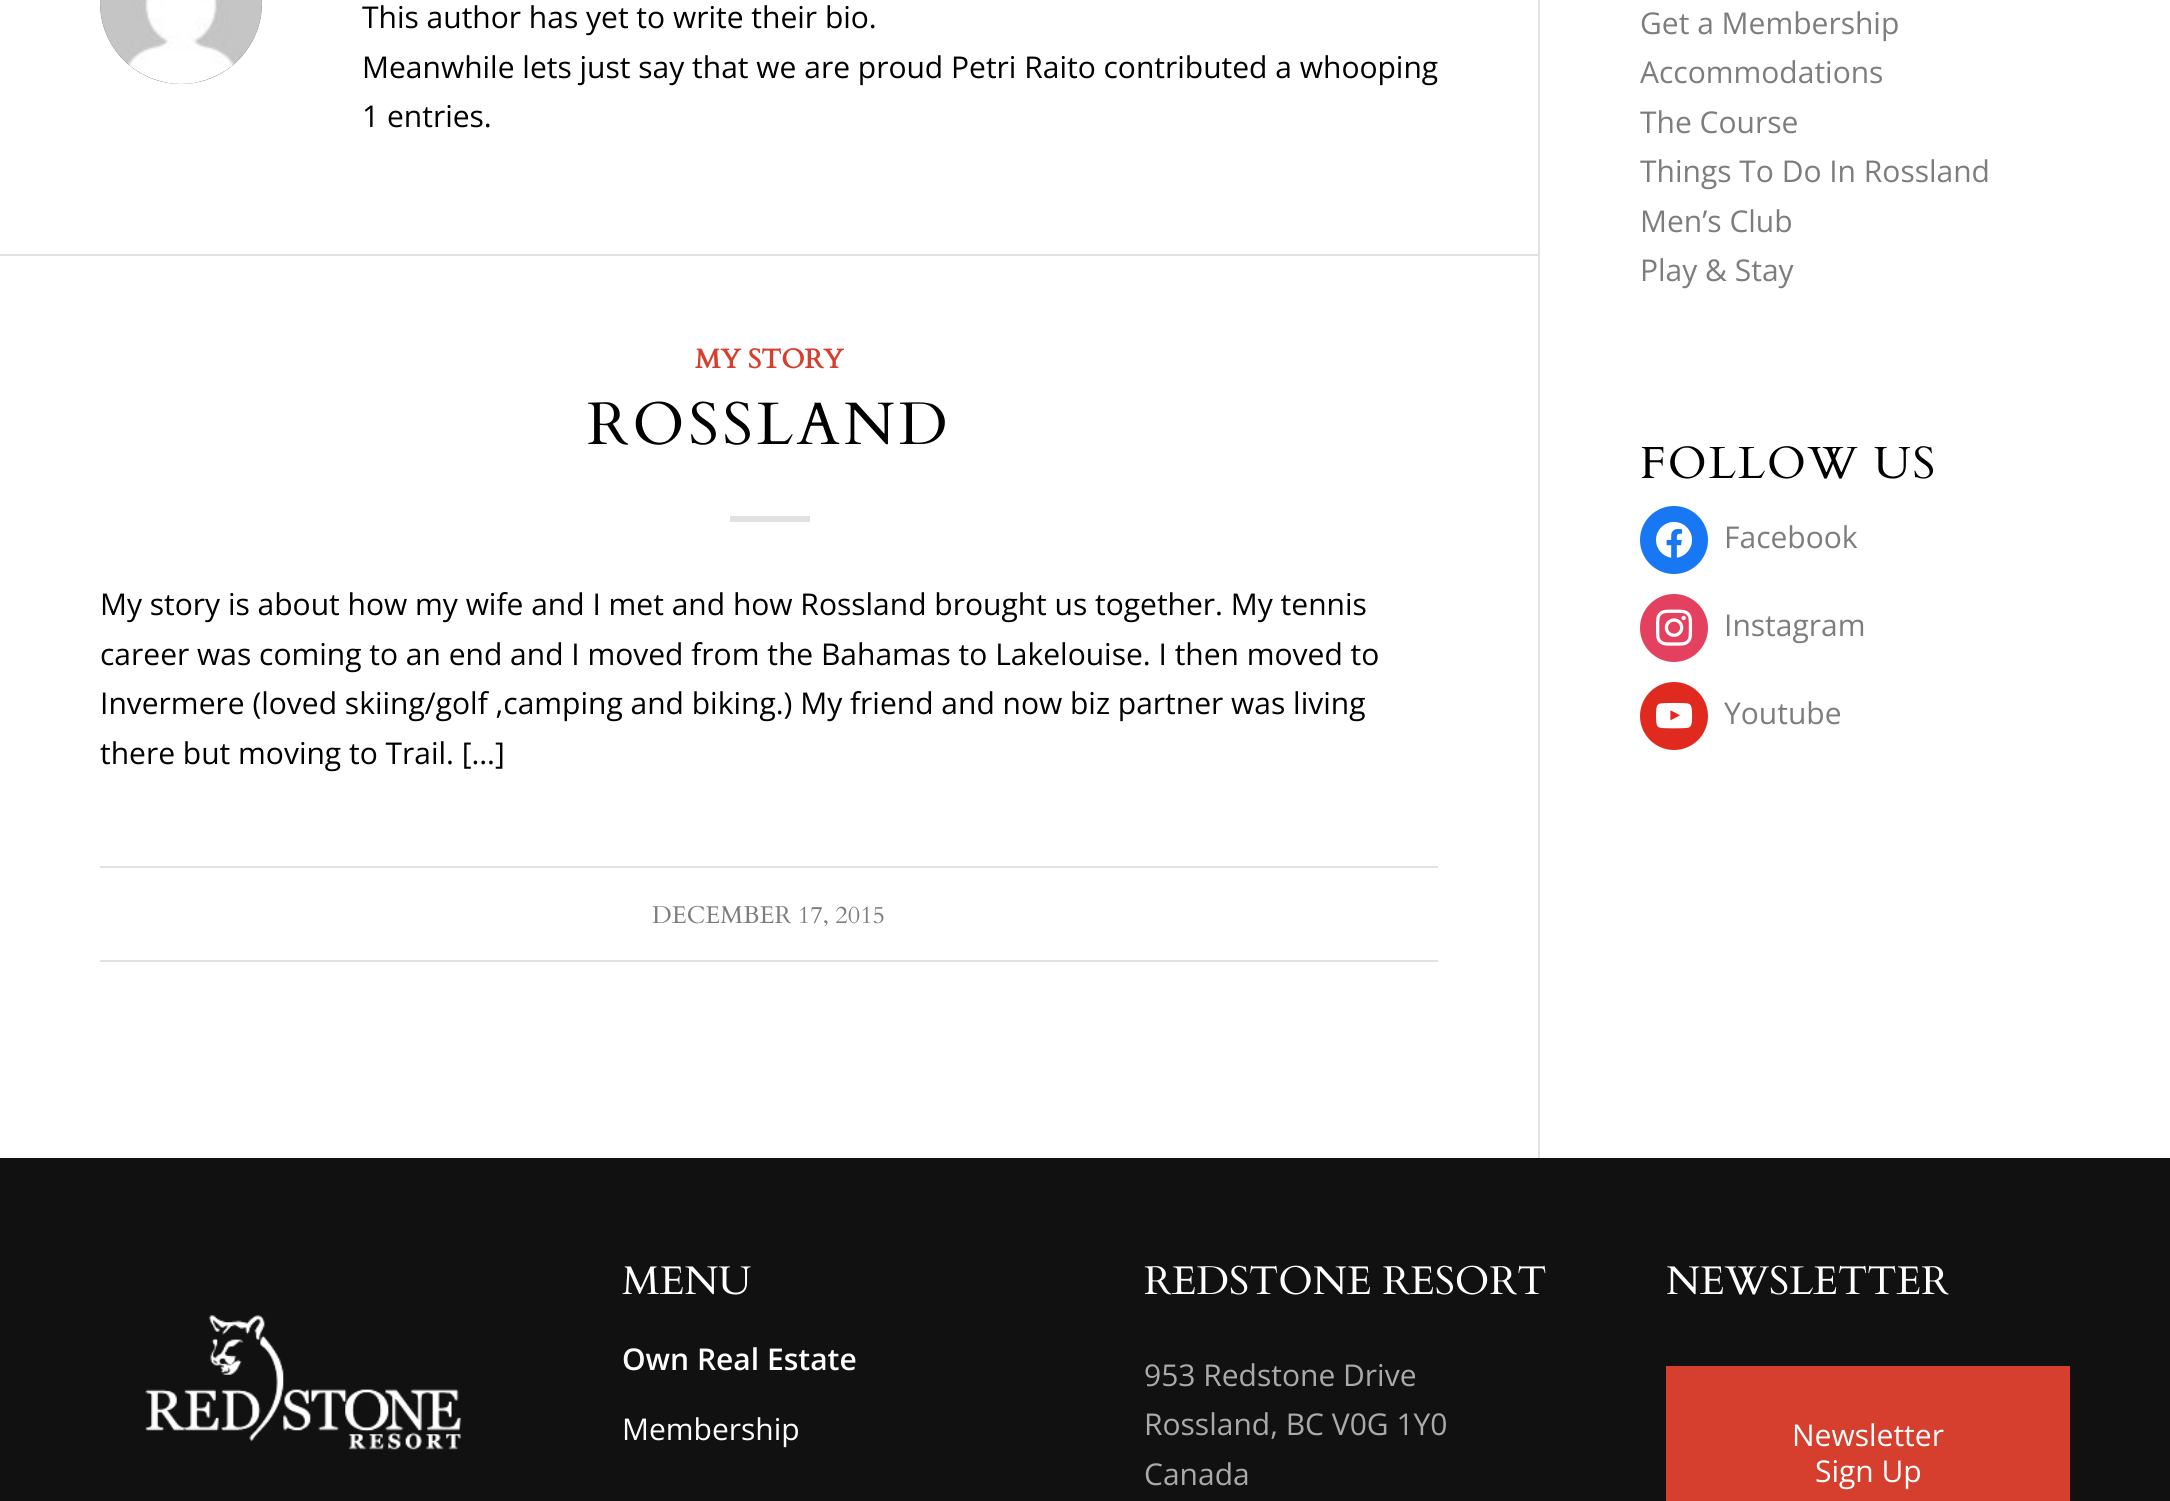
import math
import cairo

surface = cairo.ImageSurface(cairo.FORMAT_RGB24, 2170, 1501)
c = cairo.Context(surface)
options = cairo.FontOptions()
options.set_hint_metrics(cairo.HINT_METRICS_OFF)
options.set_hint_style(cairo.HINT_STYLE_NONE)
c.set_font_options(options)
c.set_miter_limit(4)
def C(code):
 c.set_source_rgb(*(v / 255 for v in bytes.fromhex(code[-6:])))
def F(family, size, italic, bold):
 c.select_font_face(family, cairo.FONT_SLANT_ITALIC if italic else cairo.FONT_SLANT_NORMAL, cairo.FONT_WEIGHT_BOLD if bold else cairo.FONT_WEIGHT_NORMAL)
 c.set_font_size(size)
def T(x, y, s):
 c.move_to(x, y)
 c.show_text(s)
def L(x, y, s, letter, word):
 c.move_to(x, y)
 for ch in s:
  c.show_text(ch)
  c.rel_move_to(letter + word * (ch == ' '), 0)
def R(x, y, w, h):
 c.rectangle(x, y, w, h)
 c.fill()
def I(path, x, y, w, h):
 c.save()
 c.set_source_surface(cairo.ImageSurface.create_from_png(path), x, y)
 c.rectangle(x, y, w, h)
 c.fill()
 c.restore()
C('ffffff')
c.paint()
C('e1e1e1')
R(1538,0,2,1158)
C('7d7d7d')
c.arc(181,3,81,0,2 * math.pi)
c.fill()
I('1.png',100,0,162,84)
F('Open Sans',30,0,0)
C('000000')
T(362,28,'This author has yet to write their bio.')
T(362,78,'Meanwhile lets just say that we are proud Petri Raito contributed a whooping')
T(362,127,'1 entries.')
C('e1e1e1')
R(0,254,1538,2)
F('Cardo',27,0,1)
C('d63e2d')
T(695,368,'MY STORY')
F('Cardo',60,0,0)
C('000000')
L(587,444,'ROSSLAND',4,0)
C('e1e1e1')
R(730,516,80,6)
F('Open Sans',30,0,0)
C('000000')
T(100,615,'My story is about how my wife and I met and how Rossland brought us together. My tennis')
T(100,665,'career was coming to an end and I moved from the Bahamas to Lakelouise. I then moved to')
T(100,714,'Invermere (loved skiing/golf ,camping and biking.) My friend and now biz partner was living')
T(100,764,'there but moving to Trail. […]')
C('e1e1e1')
R(100,866,1338,2)
R(100,960,1338,2)
F('Cardo',24.25,0,0)
C('7d7d7d')
T(652,923,'DECEMBER 17, 2015')
F('Open Sans',30,0,0)
T(1640,34,'Get a Membership')
T(1640,83,'Accommodations')
T(1640,133,'The Course')
T(1640,182,'Things To Do In Rossland')
T(1640,232,'Men’s Club')
T(1640,281,'Play & Stay')
F('Cardo',45,0,0)
C('000000')
L(1640,478,'FOLLOW US',2,0)
C('1877f2')
c.new_path()
c.arc(1674,540,34,0,2 * math.pi)
c.fill()
I('2.png',1656,521,36,37)
F('Open Sans',30,0,0)
C('7d7d7d')
T(1724,548,'Facebook')
C('e4405f')
c.new_path()
c.arc(1674,628,34,0,2 * math.pi)
c.fill()
I('3.png',1656,609,37,37)
C('7d7d7d')
T(1724,636,'Instagram')
C('e02a20')
c.new_path()
c.arc(1674,716,34,0,2 * math.pi)
c.fill()
I('4.png',1656,702,37,27)
C('7d7d7d')
T(1724,724,'Youtube')
C('111111')
R(0,1158,2170,343)
I('5.png',145,1315,317,135)
F('Cardo',40,0,0)
C('ffffff')
T(622,1294,'MENU')
F('Open Sans SemiBold',30,0,0)
T(622,1370,'Own Real Estate')
F('Open Sans',30,0,0)
T(622,1440,'Membership')
F('Cardo',40,0,0)
T(1144,1294,'REDSTONE RESORT')
F('Open Sans',30,0,0)
C('aaaaaa')
T(1144,1386,'953 Redstone Drive')
T(1144,1435,'Rossland, BC V0G 1Y0')
T(1144,1485,'Canada')
F('Cardo',40,0,0)
C('ffffff')
T(1666,1294,'NEWSLETTER')
C('d63e2d')
R(1666,1366,404,135)
F('Open Sans',30,0,0)
C('ffffff')
T(1792,1446,'Newsletter')
T(1815,1482,'Sign Up')
surface.write_to_png('o.png')
